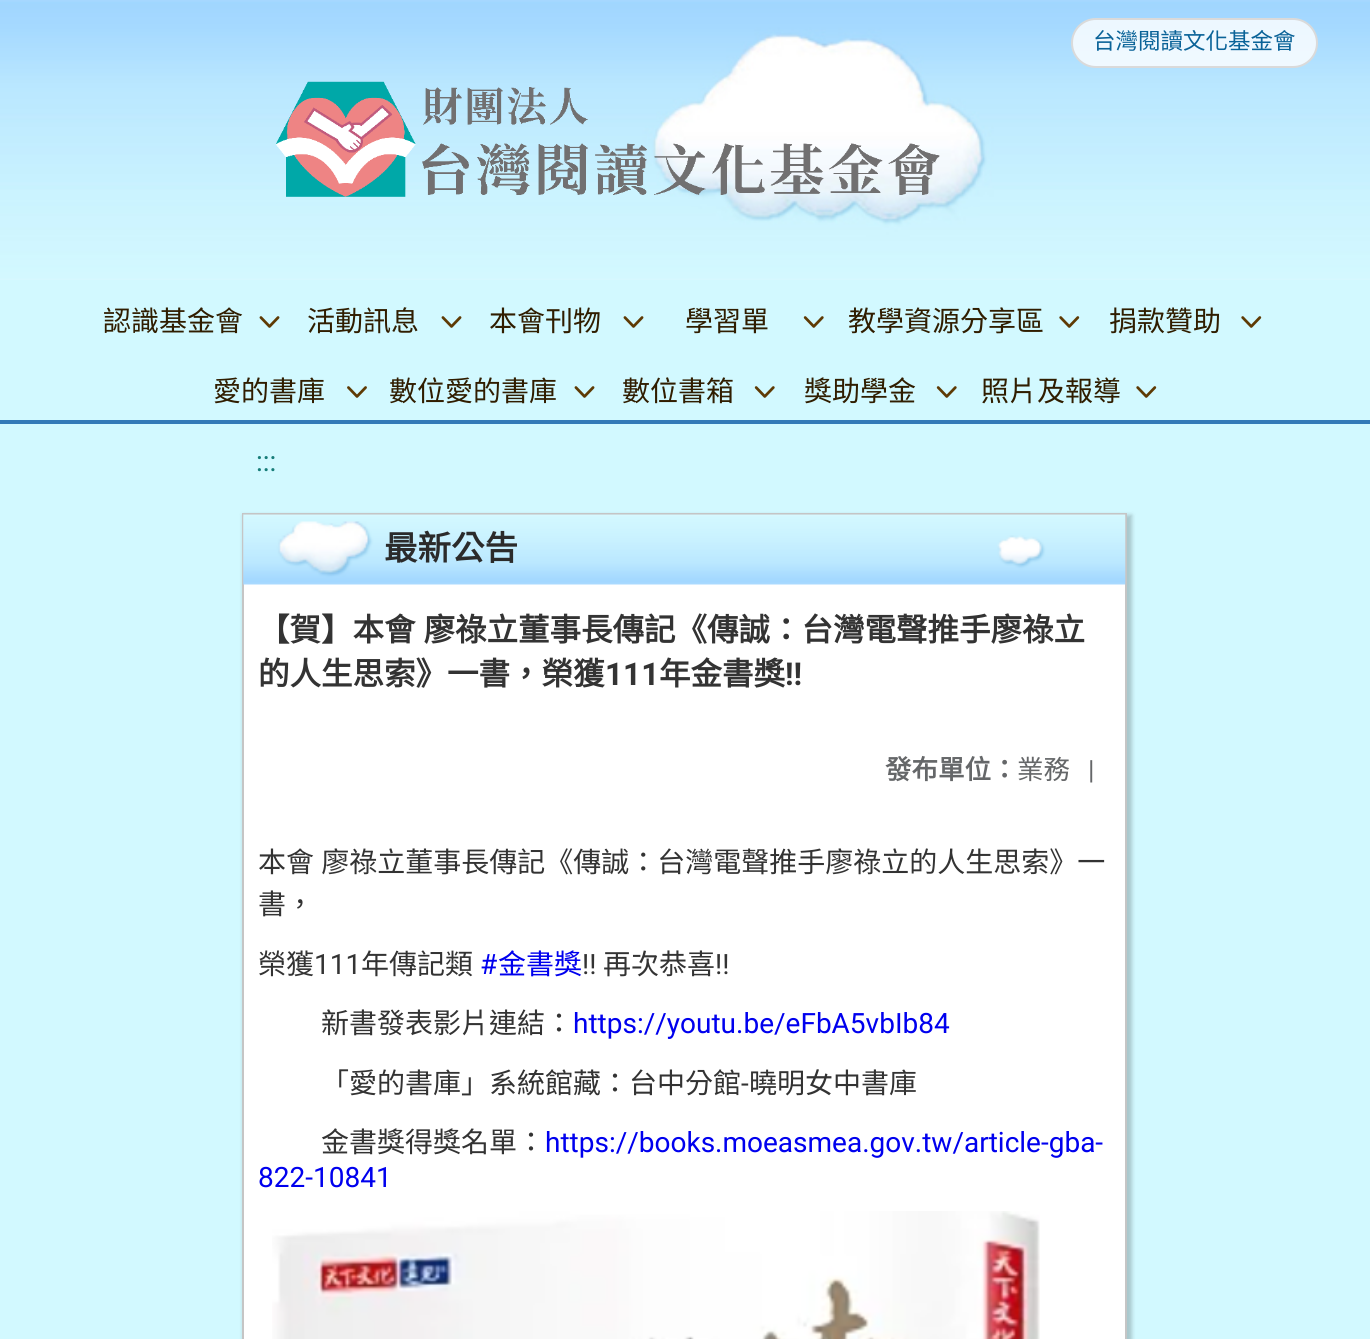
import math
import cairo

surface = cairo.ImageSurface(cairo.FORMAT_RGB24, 1370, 1339)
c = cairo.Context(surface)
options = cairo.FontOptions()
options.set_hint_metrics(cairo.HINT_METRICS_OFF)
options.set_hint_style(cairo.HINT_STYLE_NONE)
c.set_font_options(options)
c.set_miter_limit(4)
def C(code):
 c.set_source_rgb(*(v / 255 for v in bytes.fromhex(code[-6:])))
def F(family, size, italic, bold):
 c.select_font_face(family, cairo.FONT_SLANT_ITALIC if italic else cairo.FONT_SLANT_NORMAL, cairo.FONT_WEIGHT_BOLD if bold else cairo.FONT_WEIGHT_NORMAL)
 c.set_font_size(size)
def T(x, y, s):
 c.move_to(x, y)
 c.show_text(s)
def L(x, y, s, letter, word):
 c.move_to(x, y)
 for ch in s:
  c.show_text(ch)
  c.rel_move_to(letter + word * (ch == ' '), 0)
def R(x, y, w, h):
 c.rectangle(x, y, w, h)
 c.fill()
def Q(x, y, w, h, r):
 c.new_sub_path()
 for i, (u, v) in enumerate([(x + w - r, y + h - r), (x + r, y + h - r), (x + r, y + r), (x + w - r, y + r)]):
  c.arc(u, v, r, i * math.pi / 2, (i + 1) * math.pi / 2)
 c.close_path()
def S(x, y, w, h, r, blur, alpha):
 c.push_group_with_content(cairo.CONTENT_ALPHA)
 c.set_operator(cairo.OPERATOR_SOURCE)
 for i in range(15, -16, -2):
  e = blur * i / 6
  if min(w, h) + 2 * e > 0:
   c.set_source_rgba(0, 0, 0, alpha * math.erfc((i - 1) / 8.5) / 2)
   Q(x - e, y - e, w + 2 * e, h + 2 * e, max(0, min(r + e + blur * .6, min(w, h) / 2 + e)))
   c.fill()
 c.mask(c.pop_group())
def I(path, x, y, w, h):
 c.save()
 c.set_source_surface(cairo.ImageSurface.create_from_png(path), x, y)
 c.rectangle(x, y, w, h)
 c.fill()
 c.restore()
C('d2f9ff')
c.paint()
I('1.png',0,0,1370,280)
I('2.png',276,81,664,116)
c.set_source_rgba(1,1,1,0.8)
Q(1072,19,245,48,24)
c.fill_preserve()
C('dadada')
c.stroke()
F('Noto Sans CJK TC',22.5,0,0)
C('0a6398')
T(1093,49,'台灣閱讀文化基金會')
C('337ab7')
R(0,420,1370,4)
F('Noto Sans CJK TC',28,0,0)
C('301d00')
T(103,331,'認識基金會')
I('3.png',259,316,21,12)
T(307,331,'活動訊息')
I('3.png',441,316,21,12)
T(489,331,'本會刊物')
I('3.png',623,316,21,12)
T(685,331,'學習單')
I('4.png',803,316,21,12)
T(848,331,'教學資源分享區')
I('5.png',1059,316,21,12)
T(1109,331,'捐款贊助')
I('5.png',1241,316,21,12)
T(213,401,'愛的書庫')
I('6.png',347,386,20,12)
T(389,401,'數位愛的書庫')
I('3.png',574,386,21,12)
T(622,401,'數位書箱')
I('4.png',754,386,21,12)
T(804,401,'獎助學金')
I('4.png',936,386,21,12)
T(981,401,'照片及報導')
I('5.png',1136,386,21,12)
F('Roboto',28,0,0)
C('177d79')
T(256,471,':::')
C('000000')
S(243,515,889,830,0,2,.2)
C('ffffff')
c.rectangle(243,514,883,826)
c.fill_preserve()
C('c5c5c5')
c.stroke()
I('7.png',243,514,883,71)
F('Noto Sans CJK TC',33.5,0,1)
C('2b2b2b')
T(384,560,'最新公告')
F('Noto Sans CJK TC',31.5,0,1)
C('333333')
L(258,641,'【賀】本會 廖祿立董事長傳記《傳誠：台灣電聲推手廖祿立',0,1)
T(258,685,'的人生思索》一書，榮獲')
F('Roboto',31.5,0,1)
T(605,685,'111')
F('Noto Sans CJK TC',31.5,0,1)
T(659,685,'年金書獎')
F('Roboto',31.5,0,1)
T(785,685,'!!')
F('Noto Sans CJK TC',26.5,0,1)
C('656769')
T(885,779,'發布單位：')
F('Noto Sans CJK TC',26.5,0,0)
T(1017,779,'業務')
F('Roboto',26.5,0,0)
T(1088,779,'|')
F('Noto Sans CJK TC',28,0,0)
C('333333')
L(258,872,'本會 廖祿立董事長傳記《傳誠：台灣電聲推手廖祿立的人生思索》一',0,1)
T(258,914,'書，')
T(258,974,'榮獲')
F('Roboto',28,0,0)
T(314,974,'111')
F('Noto Sans CJK TC',28,0,0)
T(361,974,'年傳記類')
F('Roboto',28,0,0)
C('0000ee')
T(480,974,'#')
F('Noto Sans CJK TC',28,0,0)
T(498,974,'金書獎')
F('Roboto',28,0,0)
C('333333')
T(582,974,'!!')
F('Noto Sans CJK TC',28,0,0)
T(603,974,'再次恭喜')
F('Roboto',28,0,0)
T(715,974,'!!')
F('Noto Sans CJK TC',28,0,0)
T(321,1033,'新書發表影片連結：')
F('Roboto',28,0,0)
C('0000ee')
T(573,1033,'https://youtu.be/eFbA5vbIb84')
F('Noto Sans CJK TC',28,0,0)
C('333333')
T(321,1093,'「愛的書庫」系統館藏：台中分館')
F('Roboto',28,0,0)
T(741,1093,'-')
F('Noto Sans CJK TC',28,0,0)
T(749,1093,'曉明女中書庫')
T(321,1152,'金書獎得獎名單：')
F('Roboto',28,0,0)
C('0000ee')
T(545,1152,'https://books.moeasmea.gov.tw/article-gba-')
T(258,1187,'822-10841')
I('8.png',272,1211,768,128)
surface.write_to_png('o.png')
